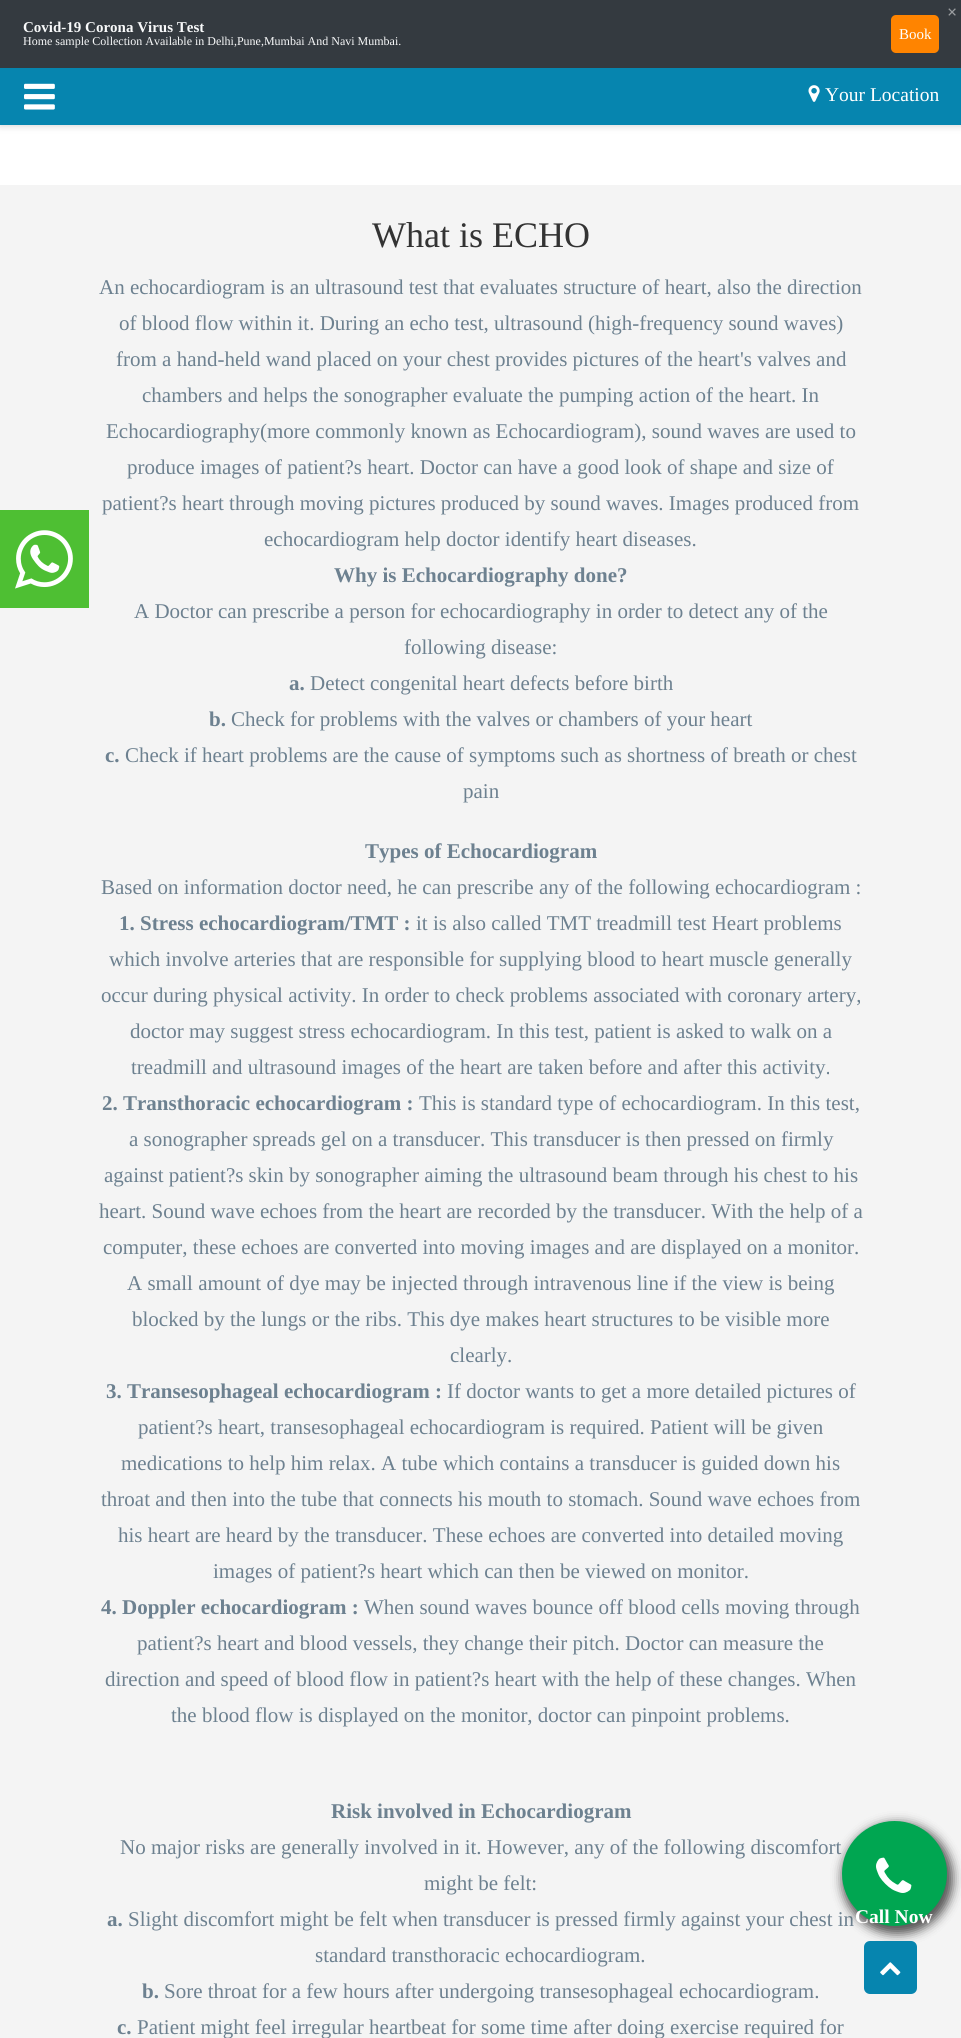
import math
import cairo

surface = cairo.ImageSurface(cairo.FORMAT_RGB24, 961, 2038)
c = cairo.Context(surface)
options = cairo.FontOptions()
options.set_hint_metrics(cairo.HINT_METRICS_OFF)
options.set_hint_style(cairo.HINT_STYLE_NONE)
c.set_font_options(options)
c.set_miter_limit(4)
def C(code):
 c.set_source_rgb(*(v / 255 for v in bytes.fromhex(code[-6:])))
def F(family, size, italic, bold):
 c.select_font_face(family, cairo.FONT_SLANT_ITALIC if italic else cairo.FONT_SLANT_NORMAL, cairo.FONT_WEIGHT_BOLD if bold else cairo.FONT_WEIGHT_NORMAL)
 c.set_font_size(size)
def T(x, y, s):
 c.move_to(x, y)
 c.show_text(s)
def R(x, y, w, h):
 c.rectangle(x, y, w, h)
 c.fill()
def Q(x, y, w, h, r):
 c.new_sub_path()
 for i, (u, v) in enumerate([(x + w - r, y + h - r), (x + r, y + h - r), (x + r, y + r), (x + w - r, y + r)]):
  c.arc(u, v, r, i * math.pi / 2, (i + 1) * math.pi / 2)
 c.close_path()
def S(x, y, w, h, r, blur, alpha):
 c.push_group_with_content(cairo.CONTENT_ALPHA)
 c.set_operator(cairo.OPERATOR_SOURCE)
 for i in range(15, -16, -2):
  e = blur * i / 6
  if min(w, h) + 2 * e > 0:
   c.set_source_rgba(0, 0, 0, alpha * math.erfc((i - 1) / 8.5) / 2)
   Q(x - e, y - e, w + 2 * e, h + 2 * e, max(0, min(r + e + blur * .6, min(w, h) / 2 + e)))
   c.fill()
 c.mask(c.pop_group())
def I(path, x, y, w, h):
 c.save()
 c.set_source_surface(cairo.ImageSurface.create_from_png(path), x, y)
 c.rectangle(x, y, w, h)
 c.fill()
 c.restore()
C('ffffff')
c.paint()
C('cccccc')
S(0,0,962,125,0,4,1)
C('343a40')
R(0,0,961,68)
F('Liberation Serif',18,0,1)
C('9a9da0')
T(947,18,'×')
F('Liberation Serif',15,0,1)
C('f8f9fa')
T(23,32,'Covid-19 Corona Virus Test')
F('Liberation Serif',12,0,0)
T(23,45,'Home sample Collection Available in Delhi,Pune,Mumbai And Navi Mumbai.')
C('ff8400')
Q(891,15,48,38,5)
c.fill()
F('Liberation Serif',15,0,0)
C('ffffff')
T(899,39,'Book')
C('0685af')
R(0,68,961,57)
I('1.png',24,83,31,27)
I('2.png',808,85,12,17)
F('Liberation Serif',19.5,0,0)
C('ffffff')
T(825,101,'Your Location')
C('f4f4f4')
R(0,185,961,1853)
F('Liberation Serif',36,0,0)
C('333333')
T(372,247,'What is ECHO')
F('Liberation Serif',21,0,0)
C('6d8190')
T(99,294,'An echocardiogram is an ultrasound test that evaluates structure of heart, also the direction')
T(119,330,'of blood flow within it. During an echo test, ultrasound (high-frequency sound waves)')
T(116,366,'from a hand-held wand placed on your chest provides pictures of the heart\'s valves and')
T(142,402,'chambers and helps the sonographer evaluate the pumping action of the heart. In')
T(106,438,'Echocardiography(more commonly known as Echocardiogram), sound waves are used to')
T(127,474,'produce images of patient?s heart. Doctor can have a good look of shape and size of')
T(102,510,'patient?s heart through moving pictures produced by sound waves. Images produced from')
T(264,546,'echocardiogram help doctor identify heart diseases.')
F('Liberation Serif',21,0,1)
T(334,582,'Why is Echocardiography done?')
F('Liberation Serif',21,0,0)
T(134,618,'A Doctor can prescribe a person for echocardiography in order to detect any of the')
T(404,654,'following disease:')
F('Liberation Serif',21,0,1)
T(289,690,'a.')
F('Liberation Serif',21,0,0)
T(310,690,'Detect congenital heart defects before birth')
F('Liberation Serif',21,0,1)
T(209,726,'b.')
F('Liberation Serif',21,0,0)
T(231,726,'Check for problems with the valves or chambers of your heart')
F('Liberation Serif',21,0,1)
T(105,762,'c.')
F('Liberation Serif',21,0,0)
T(125,762,'Check if heart problems are the cause of symptoms such as shortness of breath or chest')
T(463,798,'pain')
F('Liberation Serif',21,0,1)
T(365,858,'Types of Echocardiogram')
F('Liberation Serif',21,0,0)
T(101,894,'Based on information doctor need, he can prescribe any of the following echocardiogram :')
F('Liberation Serif',21,0,1)
T(119,930,'1. Stress echocardiogram/TMT :')
F('Liberation Serif',21,0,0)
T(416,930,'it is also called TMT treadmill test Heart problems')
T(109,966,'which involve arteries that are responsible for supplying blood to heart muscle generally')
T(101,1002,'occur during physical activity. In order to check problems associated with coronary artery,')
T(130,1038,'doctor may suggest stress echocardiogram. In this test, patient is asked to walk on a')
T(131,1074,'treadmill and ultrasound images of the heart are taken before and after this activity.')
F('Liberation Serif',21,0,1)
T(102,1110,'2. Transthoracic echocardiogram :')
F('Liberation Serif',21,0,0)
T(419,1110,'This is standard type of echocardiogram. In this test,')
T(129,1146,'a sonographer spreads gel on a transducer. This transducer is then pressed on firmly')
T(104,1182,'against patient?s skin by sonographer aiming the ultrasound beam through his chest to his')
T(99,1218,'heart. Sound wave echoes from the heart are recorded by the transducer. With the help of a')
T(103,1254,'computer, these echoes are converted into moving images and are displayed on a monitor.')
T(127,1290,'A small amount of dye may be injected through intravenous line if the view is being')
T(132,1326,'blocked by the lungs or the ribs. This dye makes heart structures to be visible more')
T(450,1362,'clearly.')
F('Liberation Serif',21,0,1)
T(106,1398,'3. Transesophageal echocardiogram :')
F('Liberation Serif',21,0,0)
T(447,1398,'If doctor wants to get a more detailed pictures of')
T(138,1434,'patient?s heart, transesophageal echocardiogram is required. Patient will be given')
T(121,1470,'medications to help him relax. A tube which contains a transducer is guided down his')
T(101,1506,'throat and then into the tube that connects his mouth to stomach. Sound wave echoes from')
T(118,1542,'his heart are heard by the transducer. These echoes are converted into detailed moving')
T(213,1578,'images of patient?s heart which can then be viewed on monitor.')
F('Liberation Serif',21,0,1)
T(101,1614,'4. Doppler echocardiogram :')
F('Liberation Serif',21,0,0)
T(364,1614,'When sound waves bounce off blood cells moving through')
T(137,1650,'patient?s heart and blood vessels, they change their pitch. Doctor can measure the')
T(105,1686,'direction and speed of blood flow in patient?s heart with the help of these changes. When')
T(171,1722,'the blood flow is displayed on the monitor, doctor can pinpoint problems.')
F('Liberation Serif',21,0,1)
T(331,1818,'Risk involved in Echocardiogram')
F('Liberation Serif',21,0,0)
T(120,1854,'No major risks are generally involved in it. However, any of the following discomfort')
T(424,1890,'might be felt:')
F('Liberation Serif',21,0,1)
T(107,1926,'a.')
F('Liberation Serif',21,0,0)
T(128,1926,'Slight discomfort might be felt when transducer is pressed firmly against your chest in')
T(315,1962,'standard transthoracic echocardiogram.')
F('Liberation Serif',21,0,1)
T(142,1998,'b.')
F('Liberation Serif',21,0,0)
T(164,1998,'Sore throat for a few hours after undergoing transesophageal echocardiogram.')
F('Liberation Serif',21,0,1)
T(117,2034,'c.')
F('Liberation Serif',21,0,0)
T(137,2034,'Patient might feel irregular heartbeat for some time after doing exercise required for')
C('4ebf33')
R(0,510,89,98)
I('3.png',15,530,58,59)
C('5a5959')
S(845,1826,105,105,52.5,6,1)
S(845,1826,105,105,52.5,6,1)
C('00a651')
c.arc(894.5,1873.5,52.5,0,2 * math.pi)
c.fill()
I('4.png',876,1857,36,36)
F('Liberation Serif',19.5,0,1)
C('ffffff')
T(855,1923,'Call Now')
C('0685af')
Q(864,1941,53,53,6)
c.fill()
I('5.png',880,1962,21,14)
surface.write_to_png('o.png')
